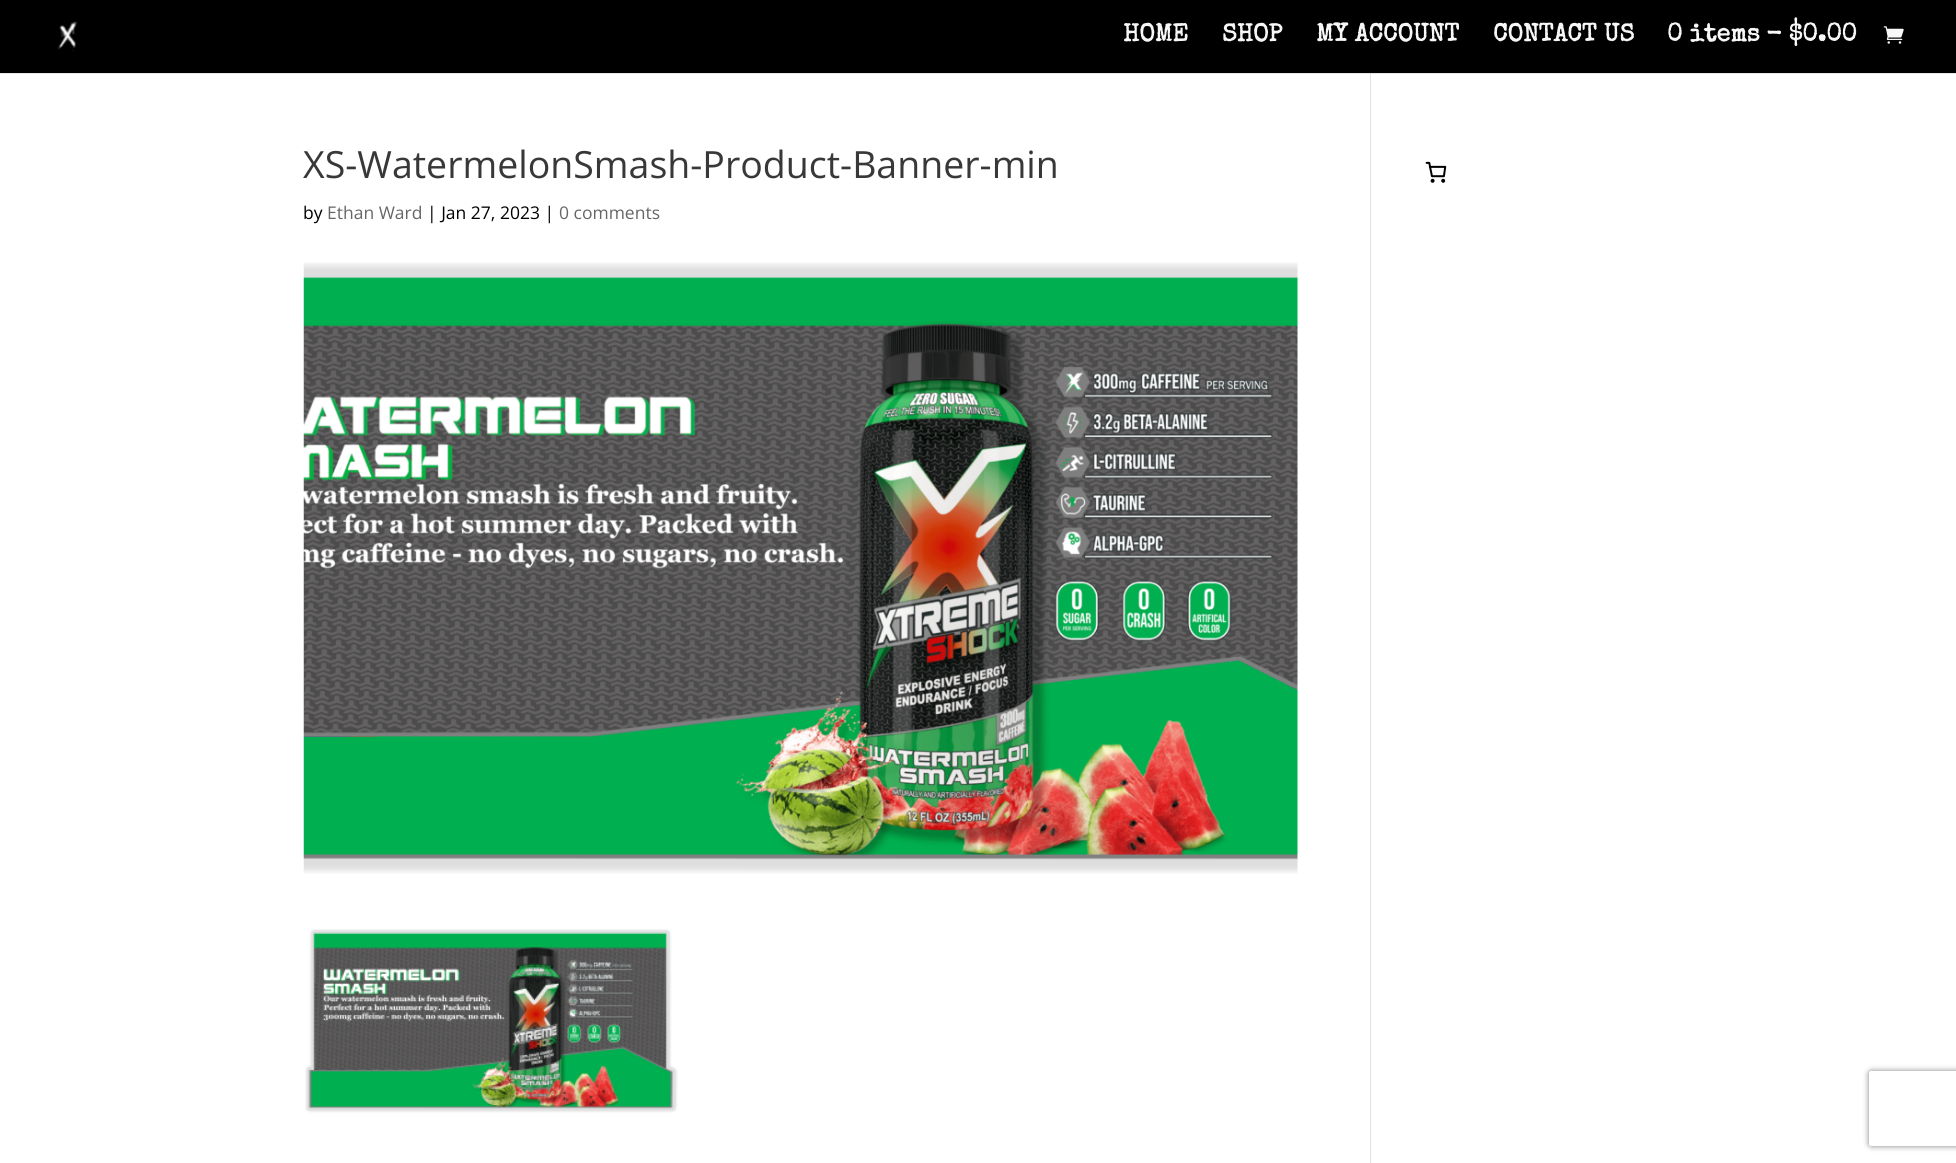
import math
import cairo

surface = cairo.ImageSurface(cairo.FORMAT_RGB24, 1956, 1163)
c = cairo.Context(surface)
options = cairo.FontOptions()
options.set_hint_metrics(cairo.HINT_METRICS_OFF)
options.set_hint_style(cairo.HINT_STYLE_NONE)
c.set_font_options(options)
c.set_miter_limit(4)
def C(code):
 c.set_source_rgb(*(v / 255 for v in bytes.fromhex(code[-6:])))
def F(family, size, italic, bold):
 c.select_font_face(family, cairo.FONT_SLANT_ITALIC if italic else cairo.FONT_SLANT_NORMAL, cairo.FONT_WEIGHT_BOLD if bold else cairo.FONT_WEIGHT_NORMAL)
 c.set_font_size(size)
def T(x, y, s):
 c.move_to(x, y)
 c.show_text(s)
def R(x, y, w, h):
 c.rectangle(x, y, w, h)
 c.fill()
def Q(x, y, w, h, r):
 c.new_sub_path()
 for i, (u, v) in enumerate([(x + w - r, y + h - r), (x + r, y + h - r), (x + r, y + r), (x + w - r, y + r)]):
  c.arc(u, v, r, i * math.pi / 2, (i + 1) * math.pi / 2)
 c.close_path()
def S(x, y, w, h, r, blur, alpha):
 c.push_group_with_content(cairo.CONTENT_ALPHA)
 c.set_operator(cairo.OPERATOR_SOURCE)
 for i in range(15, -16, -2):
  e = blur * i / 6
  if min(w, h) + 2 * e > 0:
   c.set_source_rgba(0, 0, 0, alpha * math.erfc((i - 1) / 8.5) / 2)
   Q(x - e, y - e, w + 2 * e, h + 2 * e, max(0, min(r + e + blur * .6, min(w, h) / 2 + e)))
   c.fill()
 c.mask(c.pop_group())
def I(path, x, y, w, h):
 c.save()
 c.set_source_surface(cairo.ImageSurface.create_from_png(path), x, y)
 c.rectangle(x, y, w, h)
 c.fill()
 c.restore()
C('ffffff')
c.paint()
C('000000')
R(0,0,1956,73)
I('1.png',58,21,20,31)
F('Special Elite',25,0,1)
C('f7f7f7')
T(1123,41,'HOME')
T(1222,41,'SHOP')
T(1316,41,'MY ACCOUNT')
T(1493,41,'CONTACT US')
T(1667,41,'0 items')
T(1766,41,'-')
T(1789,41,'$0.00')
I('2.png',1883,26,21,18)
C('e6e6e6')
R(0,73,1956,1)
F('Open Sans',37.5,0,0)
C('383838')
T(303,178,'XS-WatermelonSmash-Product-Banner-min')
F('Open Sans',17.5,0,0)
C('000000')
T(303,219,'by')
C('666666')
T(327,219,'Ethan Ward')
C('000000')
T(427,219,'| Jan 27, 2023 |')
C('666666')
T(559,219,'0 comments')
I('3.png',303,262,995,612)
I('4.png',305,929,373,184)
I('5.png',1425,161,22,22)
C('e2e2e2')
R(1370,73,1,1090)
C('cbcbcb')
R(1370,73,1,1)
c.save()
c.set_fill_rule(cairo.FILL_RULE_EVEN_ODD)
c.new_path()
c.move_to(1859,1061)
c.line_to(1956,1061)
c.line_to(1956,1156)
c.line_to(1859,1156)
c.close_path()
c.move_to(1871.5,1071)
c.line_to(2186.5,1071)
c.curve_to(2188,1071,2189,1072,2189,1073.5)
c.line_to(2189,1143.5)
c.curve_to(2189,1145,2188,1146,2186.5,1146)
c.line_to(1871.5,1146)
c.curve_to(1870,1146,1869,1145,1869,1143.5)
c.line_to(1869,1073.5)
c.curve_to(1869,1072,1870,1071,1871.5,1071)
c.close_path()
c.clip()
C('808080')
S(1869,1071,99,75,2.5,3,1)
c.restore()
surface.write_to_png('o.png')
